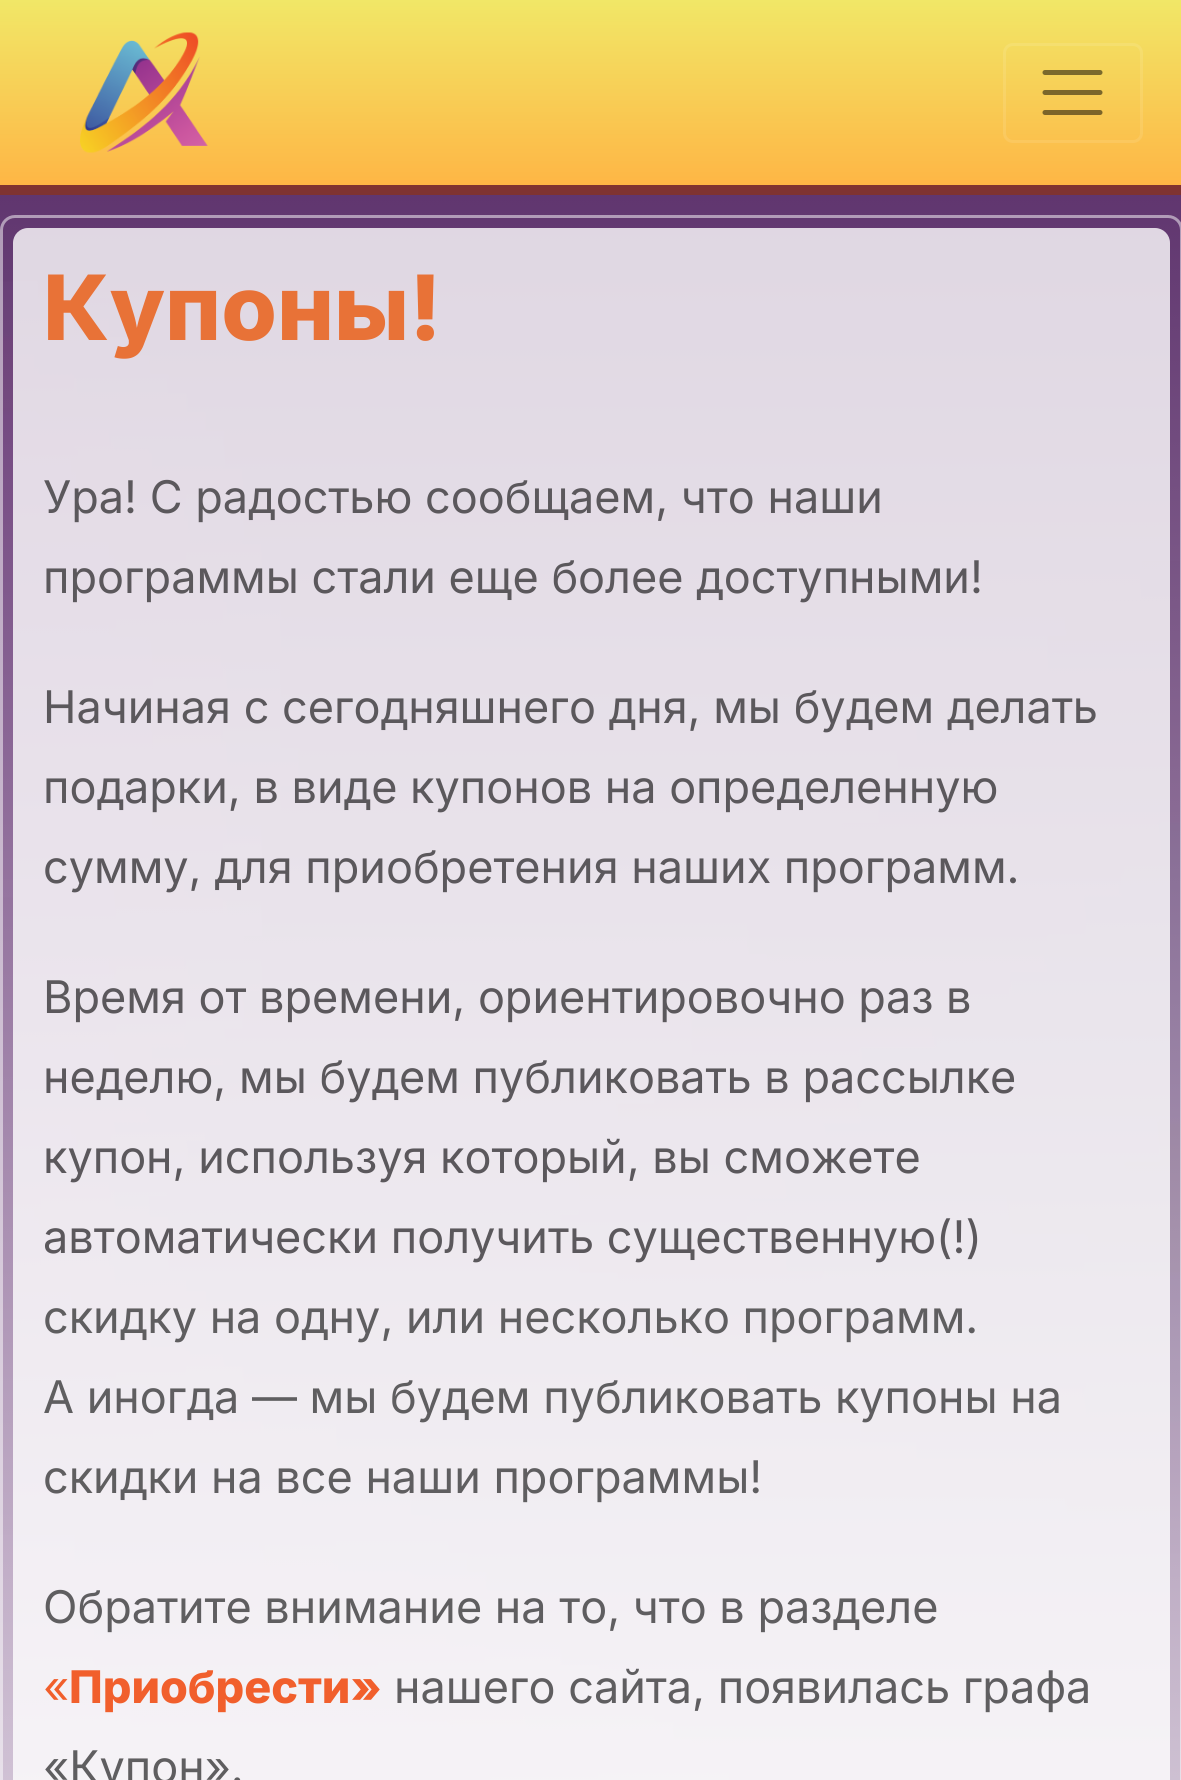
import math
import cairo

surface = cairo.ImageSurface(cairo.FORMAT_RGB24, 1181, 1780)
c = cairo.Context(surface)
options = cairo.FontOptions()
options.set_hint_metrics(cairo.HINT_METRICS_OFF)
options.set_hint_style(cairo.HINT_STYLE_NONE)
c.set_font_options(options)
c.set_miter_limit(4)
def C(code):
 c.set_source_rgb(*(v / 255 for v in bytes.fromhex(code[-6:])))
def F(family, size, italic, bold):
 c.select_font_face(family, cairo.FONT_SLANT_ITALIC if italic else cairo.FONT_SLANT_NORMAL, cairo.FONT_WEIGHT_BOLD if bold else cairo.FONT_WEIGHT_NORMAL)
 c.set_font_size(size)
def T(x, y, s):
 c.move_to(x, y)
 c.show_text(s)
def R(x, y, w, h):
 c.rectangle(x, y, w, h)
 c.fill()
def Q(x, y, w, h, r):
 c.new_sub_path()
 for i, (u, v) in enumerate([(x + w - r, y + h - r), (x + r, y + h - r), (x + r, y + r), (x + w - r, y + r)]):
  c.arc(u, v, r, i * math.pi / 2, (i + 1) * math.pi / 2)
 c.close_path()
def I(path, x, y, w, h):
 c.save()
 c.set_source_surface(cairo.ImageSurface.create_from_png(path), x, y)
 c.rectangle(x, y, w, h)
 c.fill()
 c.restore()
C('ffffff')
c.paint()
gradient = cairo.LinearGradient(591,0,591,185)
gradient.add_color_stop_rgba(0,0.945,0.906,0.404,1)
gradient.add_color_stop_rgba(1,0.996,0.714,0.271,1)
c.set_source(gradient)
R(0,0,1181,185)
C('7f3331')
R(0,185,1181,10)
I('1.png',80,32,128,121)
Q(1004.5,44.5,137,97,8.5)
c.set_source_rgba(1,1,1,0.1)
c.set_line_width(3)
c.stroke()
c.new_path()
c.move_to(1045,72.5)
c.line_to(1100,72.5)
c.move_to(1045,92.5)
c.line_to(1100,92.5)
c.move_to(1045,112.5)
c.line_to(1100,112.5)
c.set_source_rgba(0,0,0,0.5)
c.set_line_width(5)
c.set_line_cap(cairo.LINE_CAP_ROUND)
c.stroke()
I('2.png',0,195,1181,1585)
Q(1.5,216.5,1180,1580,13.5)
c.set_source_rgba(1,1,1,0.5)
c.set_line_width(3)
c.set_line_cap(cairo.LINE_CAP_BUTT)
c.stroke()
c.set_source_rgba(1,1,1,0.8)
Q(13,228,1157,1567,15)
c.fill()
F('Inter ExtraBold',90,0,0)
C('e87237')
T(43,340,'Купоны!')
F('Inter',45,0,0)
C('5b585c')
T(43,513,'Ура! С радостью сообщаем, что наши')
T(43,593,'программы стали еще более доступными!')
T(43,723,'Начиная с сегодняшнего дня, мы будем делать')
T(43,803,'подарки, в виде купонов на определенную')
T(43,883,'сумму, для приобретения наших программ.')
T(43,1013,'Время от времени, ориентировочно раз в')
T(43,1093,'неделю, мы будем публиковать в рассылке')
T(43,1173,'купон, используя который, вы сможете')
T(43,1253,'автоматически получить существенную(!)')
C('5f5e60')
T(43,1333,'скидку на одну, или несколько программ.')
T(43,1413,'А иногда — мы будем публиковать купоны на')
T(43,1493,'скидки на все наши программы!')
T(43,1623,'Обратите внимание на то, что в разделе')
C('f15f2c')
T(43,1703,'«')
F('Inter ExtraBold',45,0,0)
T(69,1703,'Приобрести»')
F('Inter',45,0,0)
C('5f5e60')
T(394,1703,'нашего сайта, появилась графа')
T(43,1783,'«Купон».')
surface.write_to_png('o.png')
